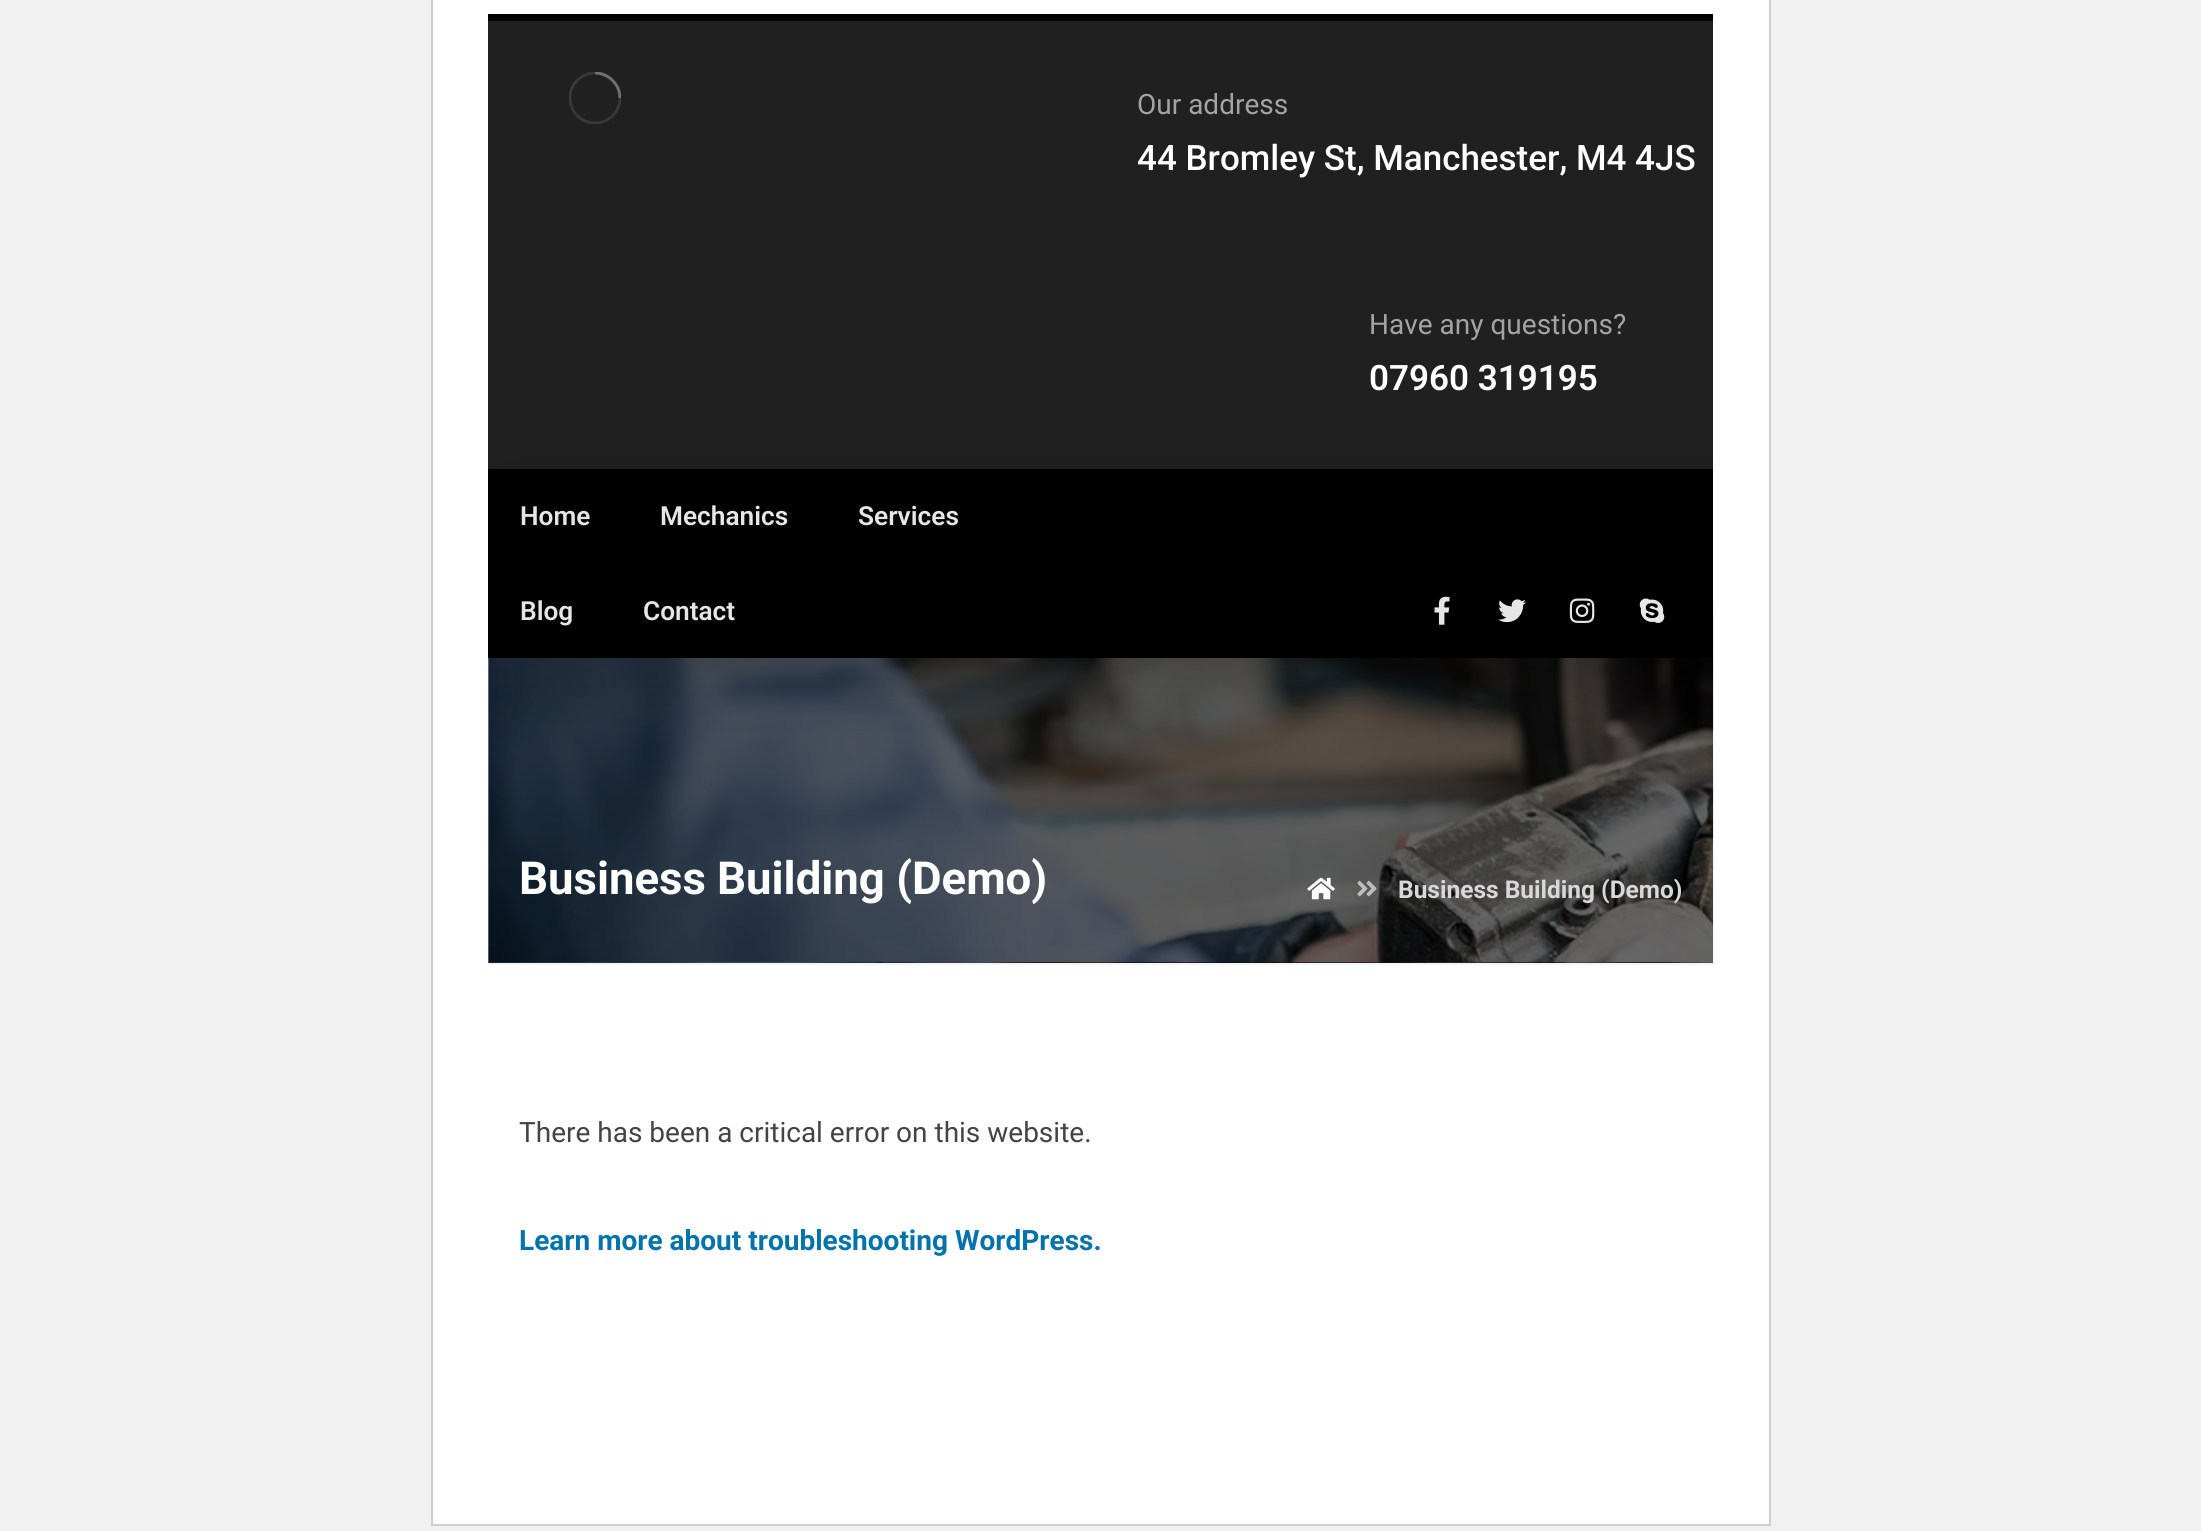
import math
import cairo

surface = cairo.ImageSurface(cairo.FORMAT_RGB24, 2201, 1531)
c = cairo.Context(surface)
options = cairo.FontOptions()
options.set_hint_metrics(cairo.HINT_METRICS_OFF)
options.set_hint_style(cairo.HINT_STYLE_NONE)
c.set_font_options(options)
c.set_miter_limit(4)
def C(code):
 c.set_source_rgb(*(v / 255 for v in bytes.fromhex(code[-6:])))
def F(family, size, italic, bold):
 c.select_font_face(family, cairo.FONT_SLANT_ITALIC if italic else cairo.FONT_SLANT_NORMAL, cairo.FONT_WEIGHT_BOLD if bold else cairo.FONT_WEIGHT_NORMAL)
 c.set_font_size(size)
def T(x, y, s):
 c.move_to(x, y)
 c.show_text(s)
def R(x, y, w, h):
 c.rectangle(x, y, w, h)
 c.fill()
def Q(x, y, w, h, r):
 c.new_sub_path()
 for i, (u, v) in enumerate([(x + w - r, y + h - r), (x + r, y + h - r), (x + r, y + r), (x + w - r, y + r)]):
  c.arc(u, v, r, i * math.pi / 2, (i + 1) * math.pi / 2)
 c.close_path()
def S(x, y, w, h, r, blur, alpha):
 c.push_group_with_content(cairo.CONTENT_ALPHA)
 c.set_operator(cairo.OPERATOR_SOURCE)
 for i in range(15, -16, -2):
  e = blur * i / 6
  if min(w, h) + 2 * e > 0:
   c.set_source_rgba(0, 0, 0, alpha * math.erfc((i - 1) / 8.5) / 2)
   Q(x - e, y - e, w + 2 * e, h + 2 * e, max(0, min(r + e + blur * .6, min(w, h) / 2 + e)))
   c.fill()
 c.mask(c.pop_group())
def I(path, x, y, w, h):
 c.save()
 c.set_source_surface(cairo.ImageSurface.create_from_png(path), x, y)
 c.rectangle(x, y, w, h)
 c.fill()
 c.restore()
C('f1f1f1')
c.paint()
C('ffffff')
c.rectangle(432,-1,1338,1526)
c.fill_preserve()
C('ccd0d4')
c.stroke()
C('000001')
R(488,14,1225,7)
C('202020')
R(488,21,1225,448)
c.save()
c.rectangle(569,72,52,52)
c.clip()
c.arc(595,98,25,0,2 * math.pi)
C('383838')
c.set_line_width(2.8)
c.stroke()
c.new_path()
c.move_to(620,98)
c.curve_to(620,84.5,608.5,73,595,73)
C('717171')
c.stroke()
c.restore()
F('Roboto',28,0,0)
C('a3a3a3')
T(1137,114,'Our address')
F('Roboto Medium',35,0,0)
C('ffffff')
T(1137,170,'44 Bromley St, Manchester, M4 4JS')
F('Roboto',28,0,0)
C('a3a3a3')
T(1369,334,'Have any questions?')
F('Roboto SemiBold',35,0,0)
C('ffffff')
T(1369,390,'07960 319195')
I('5.png',488,601,1226,363)
c.save()
c.rectangle(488,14,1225,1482)
c.clip()
C('000000')
S(515,495,1225,189,0,26,.18)
c.restore()
C('000001')
R(488,469,1225,189)
F('Roboto SemiBold',26.25,0,0)
C('e6e6e6')
T(520,525,'Home')
T(660,525,'Mechanics')
T(858,525,'Services')
T(520,620,'Blog')
T(643,620,'Contact')
I('1.png',1434,596,16,29)
I('2.png',1498,599,28,24)
I('3.png',1569,598,26,25)
I('4.png',1639,598,26,25)
C('f4f4f4')
R(488,963,1225,2)
F('Roboto',45.5,0,1)
C('ffffff')
T(519,894,'Business Building (Demo)')
I('6.png',1307,877,28,23)
I('7.png',1357,880,20,17)
F('Roboto',24.5,0,1)
C('d8d8d8')
T(1398,898,'Business Building (Demo)')
F('Roboto',28,0,0)
C('444444')
T(519,1142,'There has been a critical error on this website.')
F('Roboto',28,0,1)
C('0073aa')
T(519,1250,'Learn more about troubleshooting WordPress.')
surface.write_to_png('o.png')
